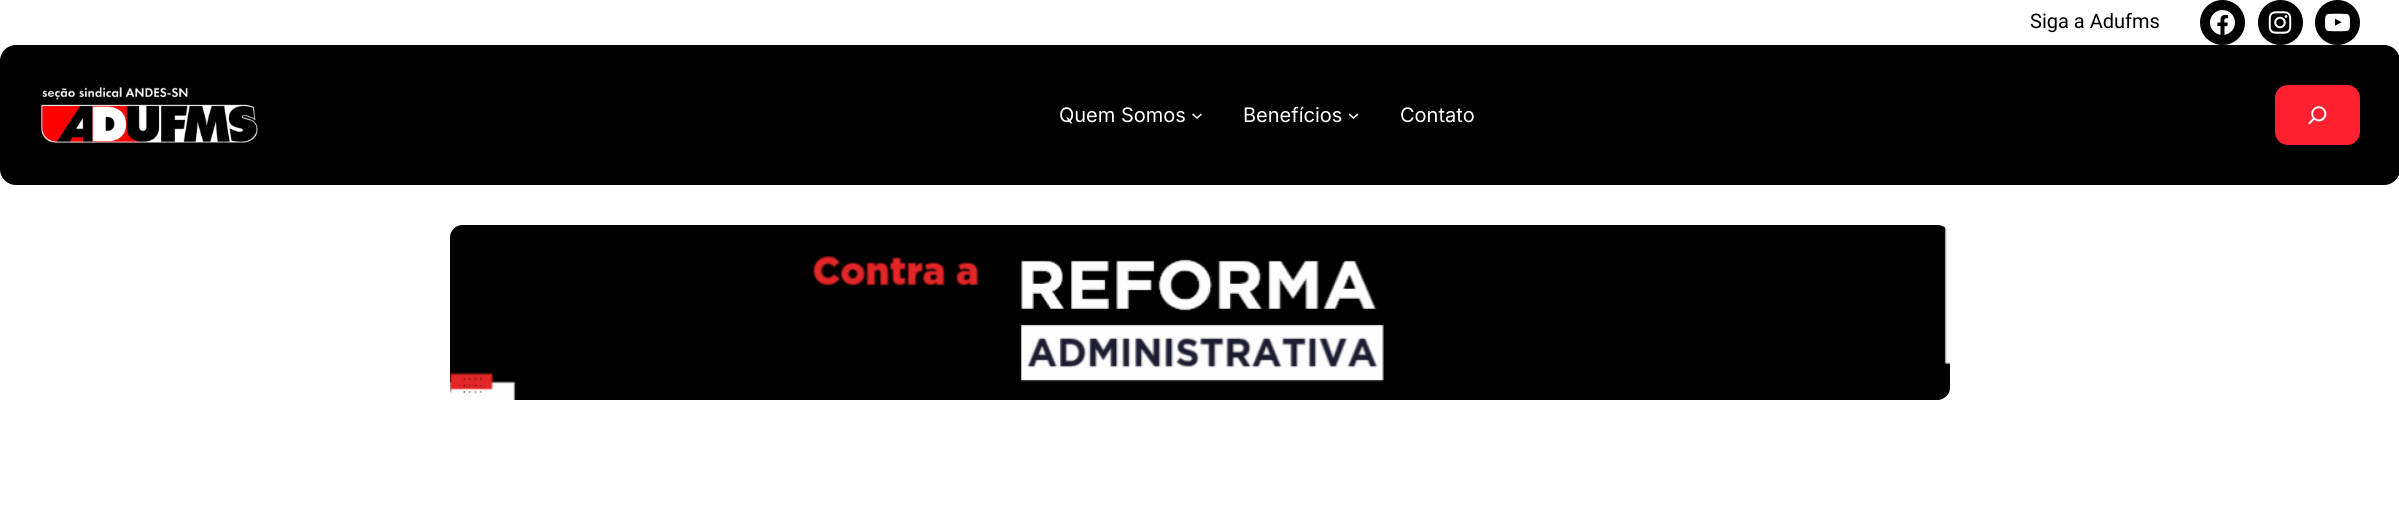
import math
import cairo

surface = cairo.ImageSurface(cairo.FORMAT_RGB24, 2399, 513)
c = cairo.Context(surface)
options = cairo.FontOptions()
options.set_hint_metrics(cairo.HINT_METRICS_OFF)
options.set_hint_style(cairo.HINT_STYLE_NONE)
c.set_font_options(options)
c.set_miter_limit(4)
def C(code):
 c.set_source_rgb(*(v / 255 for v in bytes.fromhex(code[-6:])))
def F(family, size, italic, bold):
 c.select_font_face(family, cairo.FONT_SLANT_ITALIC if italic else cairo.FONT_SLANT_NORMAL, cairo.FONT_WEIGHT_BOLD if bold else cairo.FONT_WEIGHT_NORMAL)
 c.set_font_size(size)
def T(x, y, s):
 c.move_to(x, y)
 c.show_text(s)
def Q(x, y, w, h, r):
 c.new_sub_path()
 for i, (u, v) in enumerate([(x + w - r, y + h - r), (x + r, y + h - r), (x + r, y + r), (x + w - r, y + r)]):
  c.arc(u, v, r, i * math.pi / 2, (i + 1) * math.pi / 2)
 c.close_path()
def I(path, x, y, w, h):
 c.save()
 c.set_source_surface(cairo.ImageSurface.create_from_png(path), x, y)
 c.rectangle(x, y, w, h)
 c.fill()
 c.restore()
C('ffffff')
c.paint()
F('Roboto',20,0,0)
C('000000')
T(2030,28,'Siga a Adufms')
c.new_path()
c.arc(2222.5,22.5,22.5,0,2 * math.pi)
c.fill()
I('1.png',2210,10,25,25)
c.arc(2280.5,22.5,22.5,0,2 * math.pi)
c.fill()
I('2.png',2268,11,24,23)
c.arc(2337.5,22.5,22.5,0,2 * math.pi)
c.fill()
I('3.png',2325,13,25,19)
Q(0,45,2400,140,16)
c.fill()
I('4.png',41,87,217,56)
F('Inter',20,0,0)
C('ffffff')
T(1059,122,'Quem Somos')
c.new_path()
c.move_to(1192.5,114)
c.line_to(1197,118)
c.line_to(1201.5,114)
c.set_line_width(1.5)
c.stroke()
T(1243,122,'Benefícios')
c.new_path()
c.move_to(1349,114)
c.line_to(1353.5,118)
c.line_to(1358,114)
c.stroke()
T(1400,122,'Contato')
C('ff2130')
Q(2275,85,85,60,13)
c.fill()
I('5.png',2308,106,19,19)
I('6.png',450,225,1500,175)
surface.write_to_png('o.png')
